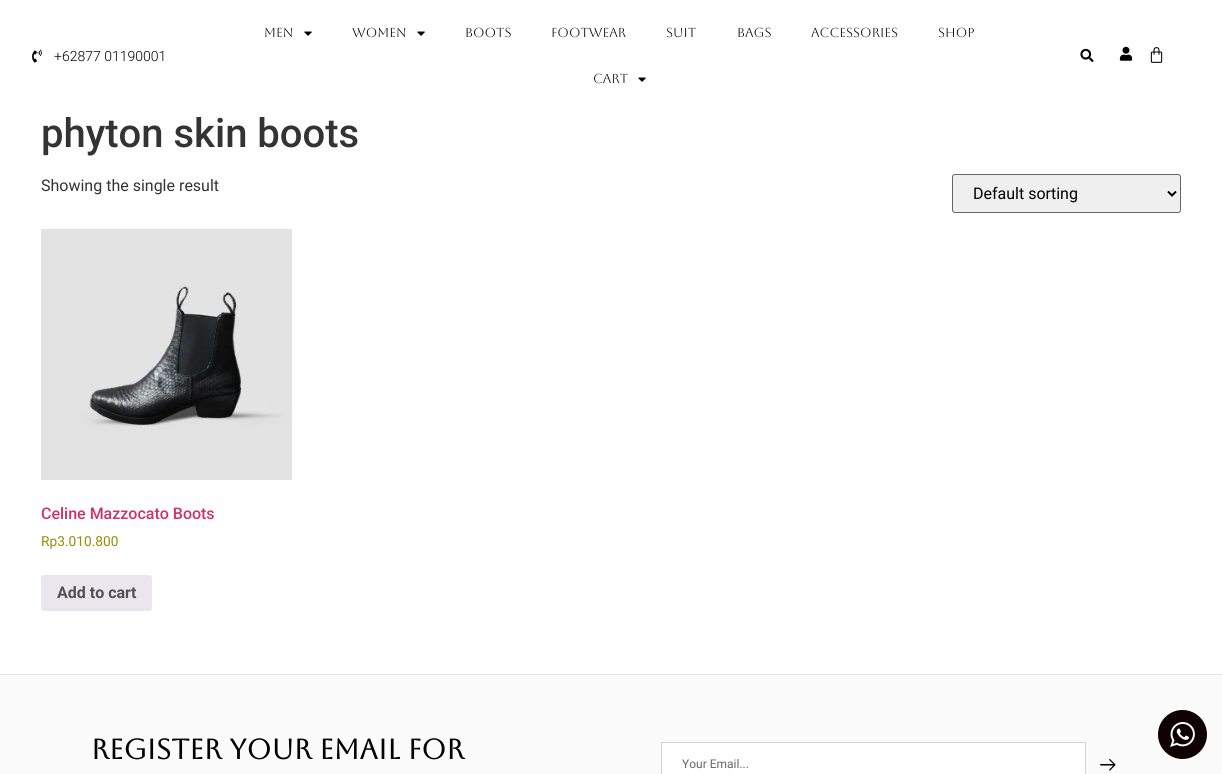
import math
import cairo

surface = cairo.ImageSurface(cairo.FORMAT_RGB24, 1222, 774)
c = cairo.Context(surface)
options = cairo.FontOptions()
options.set_hint_metrics(cairo.HINT_METRICS_OFF)
options.set_hint_style(cairo.HINT_STYLE_NONE)
c.set_font_options(options)
c.set_miter_limit(4)
def C(code):
 c.set_source_rgb(*(v / 255 for v in bytes.fromhex(code[-6:])))
def F(family, size, italic, bold):
 c.select_font_face(family, cairo.FONT_SLANT_ITALIC if italic else cairo.FONT_SLANT_NORMAL, cairo.FONT_WEIGHT_BOLD if bold else cairo.FONT_WEIGHT_NORMAL)
 c.set_font_size(size)
def T(x, y, s):
 c.move_to(x, y)
 c.show_text(s)
def R(x, y, w, h):
 c.rectangle(x, y, w, h)
 c.fill()
def Q(x, y, w, h, r):
 c.new_sub_path()
 for i, (u, v) in enumerate([(x + w - r, y + h - r), (x + r, y + h - r), (x + r, y + r), (x + w - r, y + r)]):
  c.arc(u, v, r, i * math.pi / 2, (i + 1) * math.pi / 2)
 c.close_path()
def I(path, x, y, w, h):
 c.save()
 c.set_source_surface(cairo.ImageSurface.create_from_png(path), x, y)
 c.rectangle(x, y, w, h)
 c.fill()
 c.restore()
C('ffffff')
c.paint()
I('1.png',32,49,10,14)
F('Roboto Light',14,0,0)
C('000000')
T(54,61,'+62877 01190001')
F('Aboreto',13,0,0)
T(264,37,'MEN')
I('2.png',304,31,8,5)
T(352,37,'WOMEN')
I('2.png',417,31,8,5)
T(465,37,'BOOTS')
T(551,37,'FOOTWEAR')
T(666,37,'SUIT')
T(737,37,'BAGS')
T(811,37,'ACCESSORIES')
T(938,37,'SHOP')
T(593,83,'Cart')
I('2.png',638,77,8,5)
I('3.png',1080,48,14,14)
I('4.png',1119,46,14,15)
I('5.png',1150,47,13,16)
F('Roboto Medium',40,0,0)
C('333333')
T(41,147,'phyton skin boots')
F('Roboto',16,0,0)
T(41,191,'Showing the single result')
C('efefef')
Q(952.5,174.5,228,38,2.5)
c.fill_preserve()
C('666666')
c.set_line_width(1)
c.stroke()
c.new_path()
c.move_to(1168,191.5)
c.line_to(1172,195.5)
c.line_to(1176,191.5)
C('000000')
c.set_line_width(2)
c.stroke()
T(973,199,'Default sorting')
I('6.png',41,229,251,251)
F('Roboto Medium',16,0,0)
C('cc3366')
T(41,519,'Celine Mazzocato Boots')
F('Roboto',13.75,0,0)
C('958e09')
T(41,546,'Rp3.010.800')
C('e9e6ed')
Q(41,575,111,36,3)
c.fill()
F('Roboto',16,0,1)
C('515151')
T(57,598,'Add to cart')
C('fbfbfb')
R(0,675,1222,99)
C('ebebeb')
R(0,674,1222,1)
F('Aboreto',28,0,1)
C('000000')
T(91,759,'REGISTER YOUR EMAIL FOR')
C('ffffff')
c.rectangle(661.5,742.5,424,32)
c.fill_preserve()
C('ced4da')
c.set_line_width(1)
c.stroke()
F('Roboto',12,0,0)
C('676666')
T(682,768,'Your Email...')
I('7.png',1100,759,16,12)
C('0f0101')
c.arc(1182.5,734.5,24.5,0,2 * math.pi)
c.fill()
I('8.png',1170,722,25,25)
surface.write_to_png('o.png')
